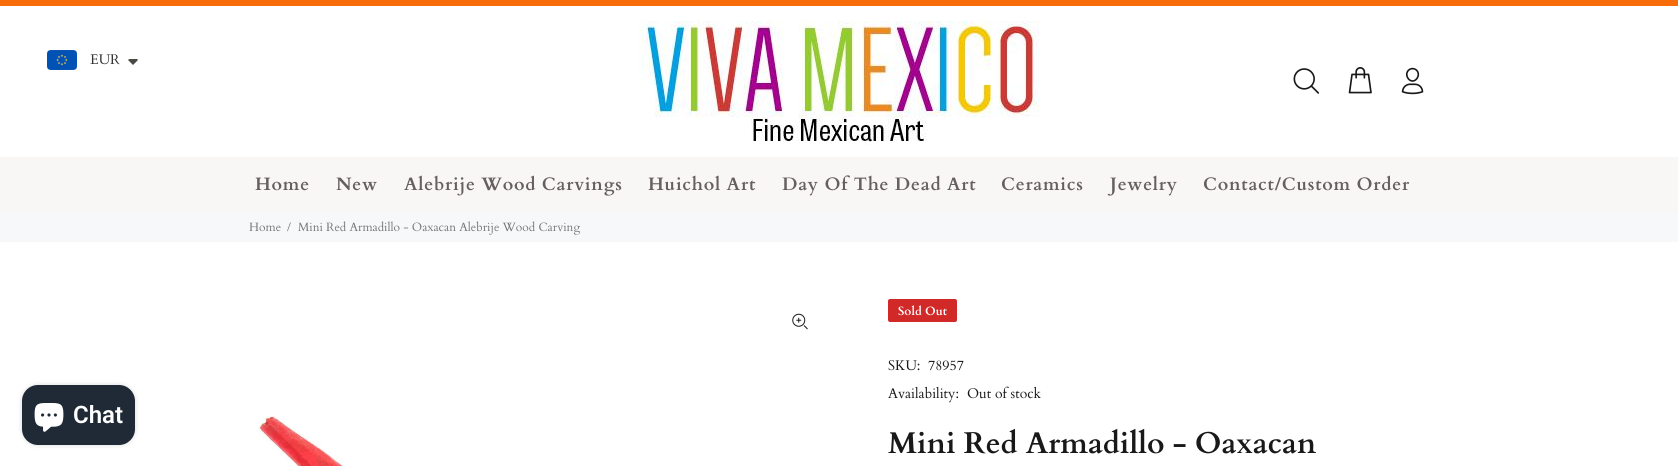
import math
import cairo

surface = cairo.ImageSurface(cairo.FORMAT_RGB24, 1678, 466)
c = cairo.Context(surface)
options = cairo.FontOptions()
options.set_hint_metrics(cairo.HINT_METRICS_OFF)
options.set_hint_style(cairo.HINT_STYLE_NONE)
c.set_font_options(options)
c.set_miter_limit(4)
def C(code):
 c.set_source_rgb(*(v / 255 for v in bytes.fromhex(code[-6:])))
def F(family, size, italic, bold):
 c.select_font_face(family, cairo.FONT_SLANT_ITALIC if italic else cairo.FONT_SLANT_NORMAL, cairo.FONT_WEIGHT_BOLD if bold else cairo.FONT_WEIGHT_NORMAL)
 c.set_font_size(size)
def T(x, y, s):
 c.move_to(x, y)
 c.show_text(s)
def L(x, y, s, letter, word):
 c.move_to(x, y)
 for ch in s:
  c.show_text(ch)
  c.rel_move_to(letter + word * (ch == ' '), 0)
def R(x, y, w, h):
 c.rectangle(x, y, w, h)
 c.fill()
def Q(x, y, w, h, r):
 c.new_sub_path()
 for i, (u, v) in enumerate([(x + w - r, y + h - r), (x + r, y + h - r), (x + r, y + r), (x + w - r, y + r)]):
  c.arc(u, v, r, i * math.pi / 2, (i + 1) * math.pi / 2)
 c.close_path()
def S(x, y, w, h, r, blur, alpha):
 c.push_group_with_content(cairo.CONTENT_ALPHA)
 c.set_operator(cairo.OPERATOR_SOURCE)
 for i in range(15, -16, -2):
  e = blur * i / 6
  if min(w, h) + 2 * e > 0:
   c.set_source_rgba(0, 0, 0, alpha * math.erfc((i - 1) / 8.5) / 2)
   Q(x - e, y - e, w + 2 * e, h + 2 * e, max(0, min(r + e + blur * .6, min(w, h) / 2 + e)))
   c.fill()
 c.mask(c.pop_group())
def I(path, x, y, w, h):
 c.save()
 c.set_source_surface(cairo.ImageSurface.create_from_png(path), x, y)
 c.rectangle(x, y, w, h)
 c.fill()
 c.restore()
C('ffffff')
c.paint()
I('1.png',47,50,30,20)
F('Cardo',14,0,0)
C('333333')
T(90,64,'EUR')
C('474942')
c.new_path()
c.move_to(130,59)
c.curve_to(129,59,128.5,59.5,128,60)
c.line_to(133,65)
c.line_to(138,60)
c.line_to(137,59)
c.close_path()
c.fill()
C('f76b08')
R(0,0,1678,6)
I('2.png',639,21,400,124)
I('3.png',1293,68,27,26)
I('4.png',1348,67,24,27)
I('5.png',1401,67,23,28)
C('f9f6f6')
R(0,157,1678,55)
F('Cardo',18,0,1)
C('675f5f')
L(255,190,'Home',.75,0)
L(336,190,'New',.75,0)
L(404,190,'Alebrije Wood Carvings',.75,0)
L(648,190,'Huichol Art',.75,0)
L(782,190,'Day Of The Dead Art',.75,0)
L(1001,190,'Ceramics',.75,0)
L(1110,190,'Jewelry',.75,0)
L(1203,190,'Contact/Custom Order',.75,0)
C('f7f8fa')
R(0,212,1678,30)
F('Cardo',12,0,0)
C('777777')
T(249,231,'Home')
T(287,231,'/')
T(298,231,'Mini Red Armadillo - Oaxacan Alebrije Wood Carving')
C('000000')
S(22,385,113,60,16,2.5,.15)
C('202a36')
Q(22,385,113,60,16)
c.fill()
I('6.png',34,403,30,29)
F('Roboto SemiBold',24,0,0)
C('ffffff')
T(73,423,'Chat')
I('7.png',792,313,16,17)
I('8.png',258,416,86,50)
C('d12828')
Q(888,299,69,23,2)
c.fill()
F('Cardo',12,0,1)
C('ffffff')
T(898,315,'Sold Out')
F('Cardo',14,0,0)
C('191919')
T(888,370,'SKU:')
T(928,370,'78957')
T(888,398,'Availability:')
T(967,398,'Out of stock')
F('Cardo',30,0,1)
T(888,453,'Mini Red Armadillo - Oaxacan')
surface.write_to_png('o.png')
